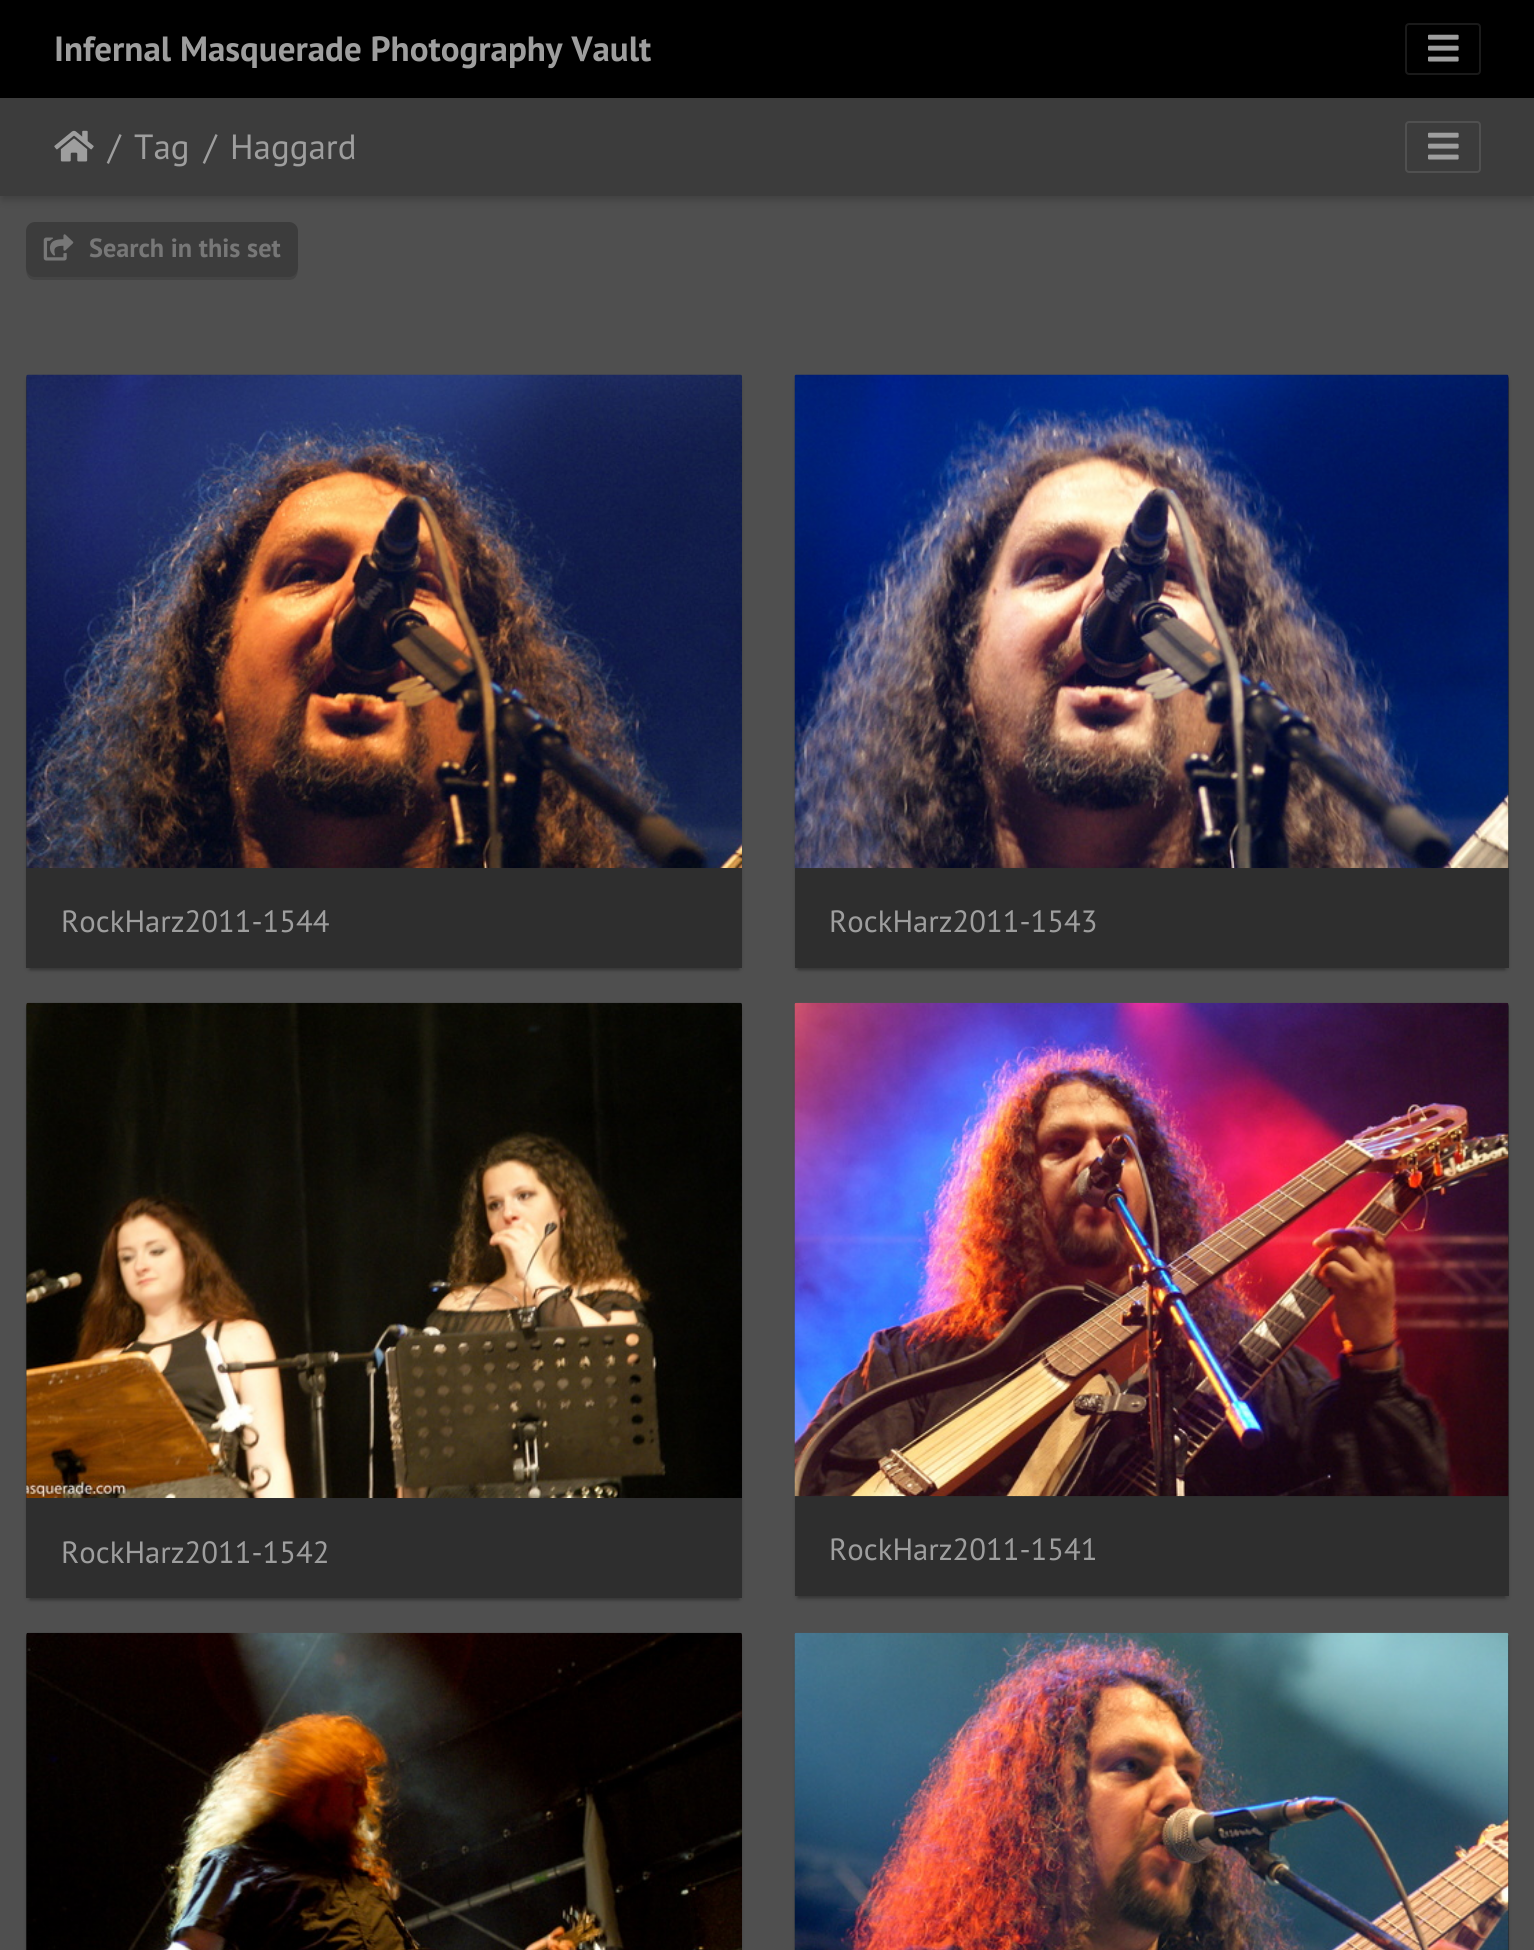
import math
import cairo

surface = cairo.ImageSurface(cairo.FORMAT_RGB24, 1534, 1950)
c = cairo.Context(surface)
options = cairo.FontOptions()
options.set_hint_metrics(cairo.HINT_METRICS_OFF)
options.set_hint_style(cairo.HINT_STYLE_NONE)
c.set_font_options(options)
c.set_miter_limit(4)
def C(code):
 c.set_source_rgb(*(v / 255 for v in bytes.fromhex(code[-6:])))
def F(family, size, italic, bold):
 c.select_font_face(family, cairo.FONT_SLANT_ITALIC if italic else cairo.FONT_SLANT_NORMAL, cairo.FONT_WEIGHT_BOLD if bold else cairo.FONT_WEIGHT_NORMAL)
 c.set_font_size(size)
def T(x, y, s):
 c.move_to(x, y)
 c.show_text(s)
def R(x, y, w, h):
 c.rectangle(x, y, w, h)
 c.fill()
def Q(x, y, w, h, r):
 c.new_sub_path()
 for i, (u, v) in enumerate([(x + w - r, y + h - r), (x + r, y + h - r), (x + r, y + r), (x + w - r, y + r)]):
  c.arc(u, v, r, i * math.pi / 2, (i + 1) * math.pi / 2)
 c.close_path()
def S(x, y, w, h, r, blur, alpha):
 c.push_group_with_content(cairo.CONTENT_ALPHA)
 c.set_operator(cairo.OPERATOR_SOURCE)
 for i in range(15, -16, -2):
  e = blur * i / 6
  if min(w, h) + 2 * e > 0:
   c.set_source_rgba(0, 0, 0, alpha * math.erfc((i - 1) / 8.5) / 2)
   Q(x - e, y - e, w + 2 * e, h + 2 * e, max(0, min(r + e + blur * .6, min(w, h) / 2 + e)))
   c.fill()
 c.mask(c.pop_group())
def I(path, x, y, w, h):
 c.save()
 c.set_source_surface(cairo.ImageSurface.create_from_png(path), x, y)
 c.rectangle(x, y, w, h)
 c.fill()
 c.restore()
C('4f4f4f')
c.paint()
C('000000')
S(2,105,1531,95,0,4.5,.2)
C('000000')
R(0,0,1534,98)
F('PT Sans',35,0,1)
C('9e9e9e')
T(54,61,'Infernal Masquerade Photography Vault')
Q(1406,24,74,50,3)
C('1a1a1a')
c.stroke()
I('1.png',1428,34,31,28)
C('3c3c3c')
R(0,98,1534,98)
I('2.png',54,130,40,32)
F('PT Sans',35,0,0)
C('9e9e9e')
T(108,159,'/')
T(134,159,'Tag')
T(204,159,'/')
T(230,159,'Haggard')
Q(1406,122,74,50,3)
C('505050')
c.stroke()
I('3.png',1428,132,31,28)
C('444444')
c.new_path()
c.move_to(26,233)
c.line_to(26,259)
c.curve_to(26,266,24,280,35,280)
c.line_to(289,280)
c.curve_to(300,280,298,266,298,259)
c.line_to(298,232)
c.line_to(298,268)
c.curve_to(298,273,294,276,289,276)
c.line_to(35,276)
c.curve_to(30,276,26,273,26,268)
c.close_path()
c.fill()
C('3c3c3c')
Q(26,222,272,55,9)
c.fill()
I('4.png',43,234,31,27)
F('PT Sans',26.25,0,1)
C('777777')
T(89,257,'Search in this set')
C('000000')
S(30,383,709,587,0,1,.2)
S(26,378,716,593,4,2,.14)
C('2e2e2e')
Q(26,375,716,593,4)
c.fill()
I('5.png',26,374,716,494)
R(26,965,716,3)
F('PT Sans',30.75,0,0)
C('9e9e9e')
T(61,932,'RockHarz2011-1544')
C('000000')
S(798,383,707,587,0,1,.2)
S(795,378,714,593,4,2,.14)
C('2e2e2e')
Q(795,375,714,593,4)
c.fill()
I('6.png',794,374,715,494)
R(795,965,714,3)
C('9e9e9e')
T(829,932,'RockHarz2011-1543')
C('000000')
S(30,1012,709,588,0,1,.2)
S(26,1006,716,595,4,2,.14)
C('2e2e2e')
Q(26,1003,716,595,4)
c.fill()
I('7.png',26,1002,716,496)
R(26,1595,716,3)
C('9e9e9e')
T(61,1563,'RockHarz2011-1542')
C('000000')
S(798,1012,707,586,0,1,.2)
S(795,1006,714,594,4,2,.14)
C('2e2e2e')
Q(795,1003,714,593,4)
c.fill()
I('8.png',794,1002,715,495)
R(795,1593,714,3)
C('9e9e9e')
T(829,1560,'RockHarz2011-1541')
C('000000')
S(26,1636,716,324,4,2,.14)
C('2e2e2e')
Q(26,1633,716,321,4)
c.fill()
I('9.png',26,1632,716,318)
C('000000')
S(795,1636,714,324,4,2,.14)
C('2e2e2e')
Q(795,1633,714,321,4)
c.fill()
I('10.png',794,1632,715,318)
surface.write_to_png('o.png')
